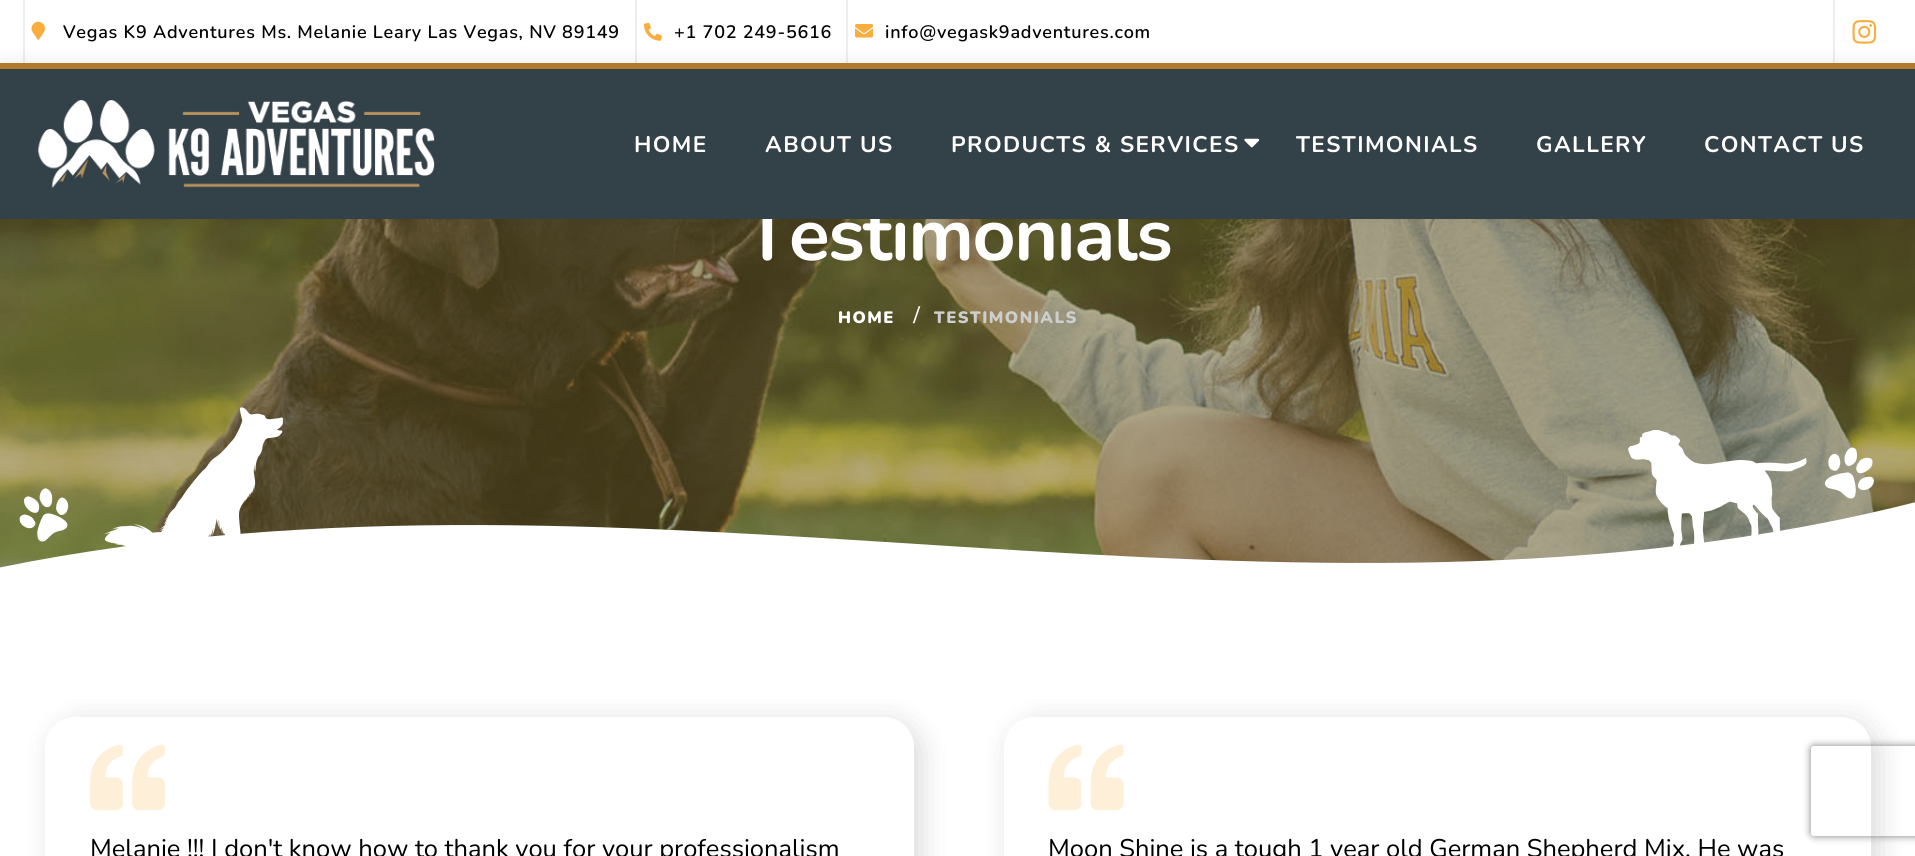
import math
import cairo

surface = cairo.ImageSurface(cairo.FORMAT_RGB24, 1915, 856)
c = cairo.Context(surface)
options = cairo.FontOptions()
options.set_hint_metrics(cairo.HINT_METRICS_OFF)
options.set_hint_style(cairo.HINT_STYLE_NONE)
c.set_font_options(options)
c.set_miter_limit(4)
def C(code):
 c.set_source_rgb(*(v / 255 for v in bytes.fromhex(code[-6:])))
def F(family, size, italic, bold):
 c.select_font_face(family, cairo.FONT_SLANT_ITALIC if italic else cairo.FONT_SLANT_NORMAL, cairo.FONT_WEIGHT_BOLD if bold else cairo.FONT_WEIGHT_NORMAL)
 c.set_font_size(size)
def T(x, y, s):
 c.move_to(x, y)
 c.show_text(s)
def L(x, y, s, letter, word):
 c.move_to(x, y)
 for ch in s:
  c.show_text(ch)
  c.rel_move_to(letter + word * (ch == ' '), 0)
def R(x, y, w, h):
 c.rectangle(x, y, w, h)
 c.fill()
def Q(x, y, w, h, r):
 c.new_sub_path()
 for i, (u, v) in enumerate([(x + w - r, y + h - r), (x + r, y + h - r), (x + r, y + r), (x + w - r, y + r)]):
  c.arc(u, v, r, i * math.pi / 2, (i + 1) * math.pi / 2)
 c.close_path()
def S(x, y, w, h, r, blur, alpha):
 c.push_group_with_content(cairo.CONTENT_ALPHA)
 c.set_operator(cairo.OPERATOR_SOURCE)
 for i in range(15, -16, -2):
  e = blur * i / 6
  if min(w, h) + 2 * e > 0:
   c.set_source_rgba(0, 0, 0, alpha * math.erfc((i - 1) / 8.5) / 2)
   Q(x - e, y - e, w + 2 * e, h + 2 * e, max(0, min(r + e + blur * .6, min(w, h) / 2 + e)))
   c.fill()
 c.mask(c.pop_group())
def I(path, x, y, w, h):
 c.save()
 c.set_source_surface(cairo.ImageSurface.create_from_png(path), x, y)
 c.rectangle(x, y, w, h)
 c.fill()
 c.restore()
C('ffffff')
c.paint()
C('eeeeee')
R(23,0,2,63)
I('1.png',31,21,14,19)
F('Nunito SemiBold',18,0,0)
C('000000')
L(63,38,'Vegas K9 Adventures Ms. Melanie Leary Las Vegas, NV 89149',.75,0)
C('eeeeee')
R(635,0,2,63)
I('2.png',644,22,18,19)
C('000000')
L(674,38,'+1 702 249-5616',.75,0)
C('eeeeee')
R(846,0,2,63)
I('3.png',855,24,18,14)
C('000000')
L(885,38,'info@vegask9adventures.com',.75,0)
C('eeeeee')
R(1833,0,2,63)
I('4.png',1852,20,25,24)
I('7.png',0,219,1915,349)
C('000000')
S(0,60,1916,156,0,9,.07)
F('Nunito',75,0,1)
C('ffffff')
L(744,260,'Testimonials',-1.5,0)
C('334249')
R(0,69,1915,150)
C('b27b2b')
R(0,63,1915,6)
I('5.png',37,100,398,88)
F('Nunito',22.5,0,1)
C('ffffff')
L(634,152,'HOME',1.4,0)
L(765,152,'ABOUT US',1.4,0)
L(951,152,'PRODUCTS & SERVICES',1.4,0)
I('6.png',1244,138,16,10)
L(1296,152,'TESTIMONIALS',1.4,0)
L(1536,152,'GALLERY',1.4,0)
L(1704,152,'CONTACT US',1.4,0)
F('Nunito Black',16.5,0,0)
L(838,323,'HOME',1.5,0)
F('Liberation Serif',25.5,0,1)
L(913,323,'/',1.5,0)
F('Nunito Black',16.5,0,0)
C('cecece')
L(934,323,'TESTIMONIALS',1.5,0)
I('8.png',0,407,1915,175)
C('000000')
S(53,722,868,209,30,15,.15)
C('ffffff')
Q(45,717,869,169,30)
c.fill()
I('9.png',90,744,75,67)
F('Nunito',25.5,0,0)
C('000000')
T(90,857,'Melanie !!! I don\'t know how to thank you for your professionalism')
C('000000')
S(1011,722,867,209,30,15,.15)
C('ffffff')
Q(1004,717,867,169,30)
c.fill()
I('10.png',1048,744,76,67)
C('000000')
T(1048,857,'Moon Shine is a tough 1 year old German Shepherd Mix. He was')
c.save()
c.set_fill_rule(cairo.FILL_RULE_EVEN_ODD)
c.new_path()
c.move_to(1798,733)
c.line_to(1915,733)
c.line_to(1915,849)
c.line_to(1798,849)
c.close_path()
c.move_to(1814,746)
c.line_to(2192,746)
c.curve_to(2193.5,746,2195,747.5,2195,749)
c.line_to(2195,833)
c.curve_to(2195,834.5,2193.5,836,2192,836)
c.line_to(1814,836)
c.curve_to(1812.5,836,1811,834.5,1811,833)
c.line_to(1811,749)
c.curve_to(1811,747.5,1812.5,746,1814,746)
c.close_path()
c.clip()
C('808080')
S(1811,746,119,90,3,4,1)
c.restore()
surface.write_to_png('o.png')
